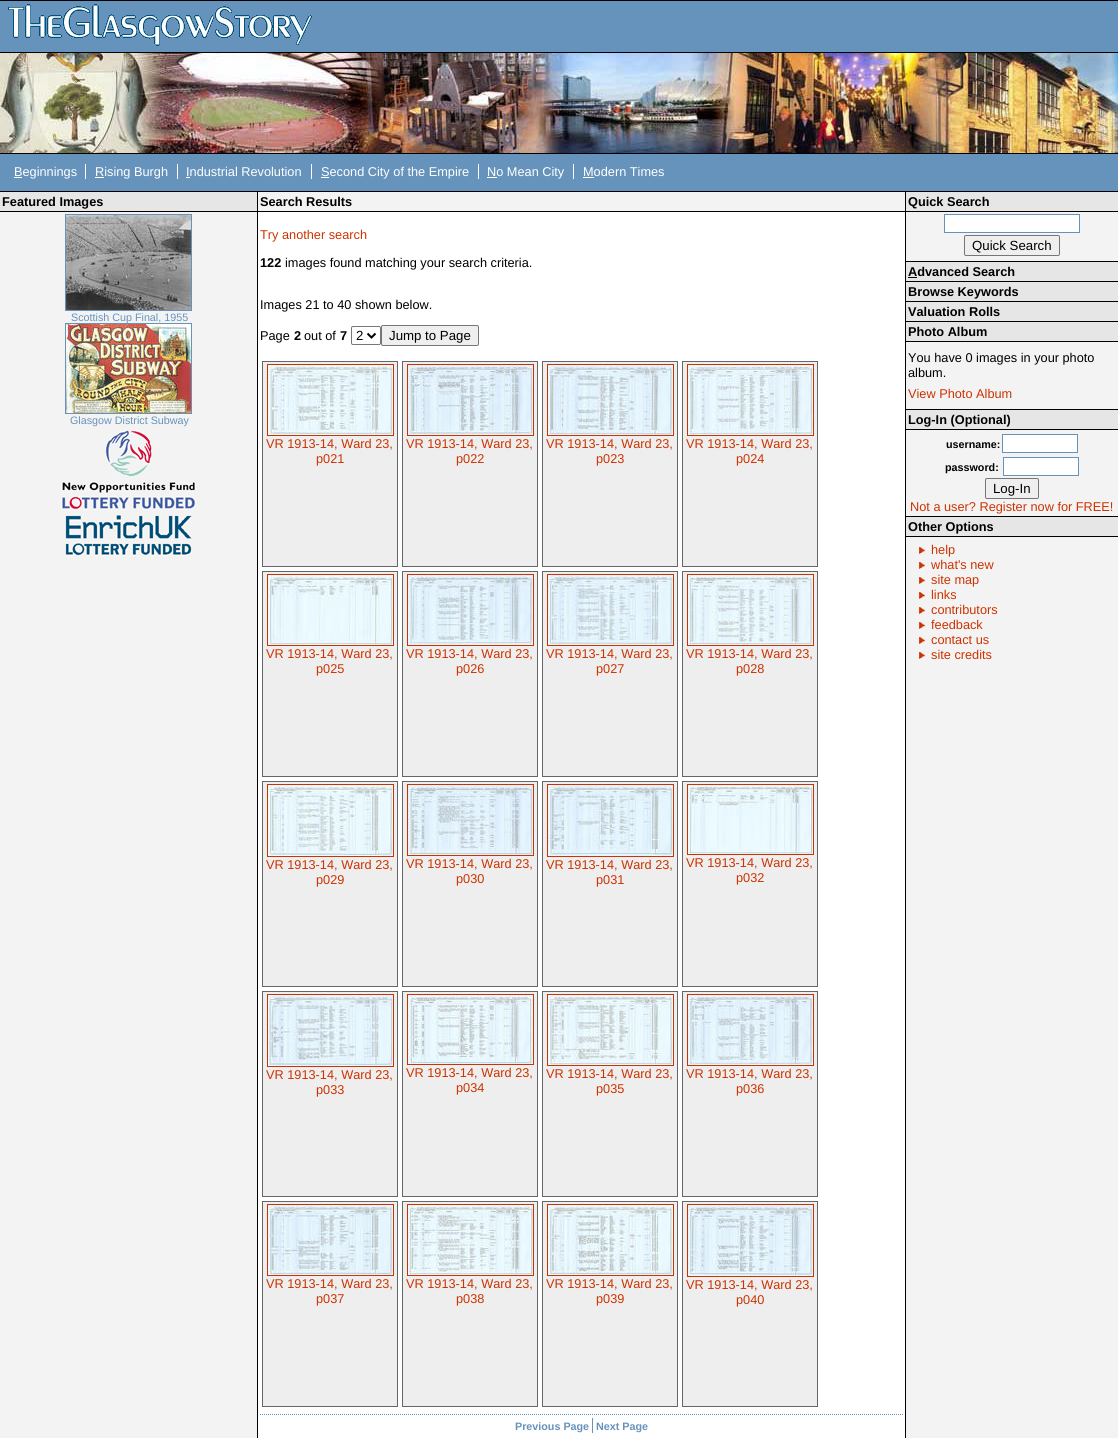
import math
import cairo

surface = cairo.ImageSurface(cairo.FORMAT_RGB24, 1118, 1438)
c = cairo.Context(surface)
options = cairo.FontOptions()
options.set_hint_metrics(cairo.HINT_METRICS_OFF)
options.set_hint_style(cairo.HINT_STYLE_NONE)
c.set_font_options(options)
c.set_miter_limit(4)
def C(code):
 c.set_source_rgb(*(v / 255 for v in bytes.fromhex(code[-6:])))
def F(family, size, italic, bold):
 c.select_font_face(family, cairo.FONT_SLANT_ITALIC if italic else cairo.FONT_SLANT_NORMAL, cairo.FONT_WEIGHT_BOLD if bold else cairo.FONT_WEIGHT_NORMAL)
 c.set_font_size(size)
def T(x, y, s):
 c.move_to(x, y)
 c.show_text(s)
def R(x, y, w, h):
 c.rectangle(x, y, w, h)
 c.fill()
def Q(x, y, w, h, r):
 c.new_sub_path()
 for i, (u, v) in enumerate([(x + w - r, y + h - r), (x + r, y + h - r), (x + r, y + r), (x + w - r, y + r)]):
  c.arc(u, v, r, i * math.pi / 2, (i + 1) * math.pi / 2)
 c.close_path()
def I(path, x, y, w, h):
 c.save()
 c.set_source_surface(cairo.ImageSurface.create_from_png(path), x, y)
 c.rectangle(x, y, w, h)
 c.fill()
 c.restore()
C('f3f3f3')
c.paint()
C('6693bc')
R(0,1,1118,51)
C('000000')
R(0,0,1118,1)
I('1.png',8,4,304,42)
I('2.png',0,53,1118,100)
R(0,52,1118,1)
R(0,153,1118,1)
C('6693bc')
R(0,154,1118,37)
C('000000')
R(0,191,1118,1)
C('ffffff')
R(14,177,8,1)
F('Liberation Sans',12.75,0,0)
T(14,176,'Beginnings')
R(95,177,9,1)
T(95,176,'Rising Burgh')
R(85,164,1,15)
T(186,176,'Industrial Revolution')
R(177,164,1,15)
R(186,177,4,1)
R(321,177,8,1)
T(321,176,'Second City of the Empire')
R(311,164,1,15)
R(487,177,10,1)
T(487,176,'No Mean City')
R(478,164,1,15)
T(583,176,'Modern Times')
R(573,164,1,15)
R(583,177,11,1)
C('e6e6e6')
R(0,192,257,19)
C('000000')
R(0,211,257,1)
F('Liberation Sans',12.75,0,1)
T(2,206,'Featured Images')
c.rectangle(65.5,214.5,126,96)
C('6693bc')
c.set_line_width(1)
c.stroke()
I('3.png',66,215,125,95)
F('Liberation Sans',10.75,0,0)
T(71,321,'Scottish Cup Final, 1955')
c.rectangle(65.5,323.5,126,90)
c.stroke()
I('4.png',66,324,125,89)
T(70,424,'Glasgow District Subway')
I('5.png',61,429,135,81)
I('6.png',65,514,127,42)
C('ffffff')
R(258,212,647,1226)
C('000000')
R(905,192,1,1246)
R(257,192,1,1246)
R(258,211,647,1)
F('Liberation Sans',12.75,0,1)
T(260,206,'Search Results')
F('Liberation Sans',12.75,0,0)
C('cc3300')
T(260,239,'Try another search')
F('Liberation Sans',12.75,0,1)
C('000000')
T(260,267,'122')
F('Liberation Sans',12.75,0,0)
T(285,267,'images found matching your search criteria.')
T(260,309,'Images 21 to 40 shown below.')
T(260,340,'Page')
F('Liberation Sans',12.75,0,1)
T(294,340,'2')
F('Liberation Sans',12.75,0,0)
T(304,340,'out of')
F('Liberation Sans',12.75,0,1)
T(340,340,'7')
Q(351.5,326.5,29,18,1.5)
C('767676')
c.stroke()
c.new_path()
c.move_to(367.5,333.5)
c.line_to(371.5,337.5)
c.line_to(375.5,333.5)
C('000000')
c.set_line_width(2)
c.stroke()
F('Liberation Sans',13.25,0,0)
T(356,340,'2')
C('efefef')
Q(381.5,325.5,97,20,1.5)
c.fill_preserve()
C('767676')
c.set_line_width(1)
c.stroke()
C('000000')
T(389,340,'Jump to Page')
C('eeeeee')
c.rectangle(262.5,361.5,135,205)
c.fill_preserve()
C('666666')
c.stroke()
c.rectangle(267.5,364.5,126,71)
C('cc3300')
c.stroke()
I('7.png',268,365,125,70)
F('Liberation Sans',12.75,0,0)
T(266,448,'VR 1913-14, Ward 23,')
T(316,463,'p021')
C('eeeeee')
c.rectangle(402.5,361.5,135,205)
c.fill_preserve()
C('666666')
c.stroke()
c.rectangle(407.5,364.5,126,71)
C('cc3300')
c.stroke()
I('8.png',408,365,125,70)
T(406,448,'VR 1913-14, Ward 23,')
T(456,463,'p022')
C('eeeeee')
c.rectangle(542.5,361.5,135,205)
c.fill_preserve()
C('666666')
c.stroke()
c.rectangle(547.5,364.5,126,71)
C('cc3300')
c.stroke()
I('9.png',548,365,125,70)
T(546,448,'VR 1913-14, Ward 23,')
T(596,463,'p023')
C('eeeeee')
c.rectangle(682.5,361.5,135,205)
c.fill_preserve()
C('666666')
c.stroke()
c.rectangle(687.5,364.5,126,71)
C('cc3300')
c.stroke()
I('10.png',688,365,125,70)
T(686,448,'VR 1913-14, Ward 23,')
T(736,463,'p024')
C('eeeeee')
c.rectangle(262.5,571.5,135,205)
c.fill_preserve()
C('666666')
c.stroke()
c.rectangle(267.5,574.5,126,71)
C('cc3300')
c.stroke()
I('11.png',268,575,125,70)
T(266,658,'VR 1913-14, Ward 23,')
T(316,673,'p025')
C('eeeeee')
c.rectangle(402.5,571.5,135,205)
c.fill_preserve()
C('666666')
c.stroke()
c.rectangle(407.5,574.5,126,71)
C('cc3300')
c.stroke()
I('12.png',408,575,125,70)
T(406,658,'VR 1913-14, Ward 23,')
T(456,673,'p026')
C('eeeeee')
c.rectangle(542.5,571.5,135,205)
c.fill_preserve()
C('666666')
c.stroke()
c.rectangle(547.5,574.5,126,71)
C('cc3300')
c.stroke()
I('13.png',548,575,125,70)
T(546,658,'VR 1913-14, Ward 23,')
T(596,673,'p027')
C('eeeeee')
c.rectangle(682.5,571.5,135,205)
c.fill_preserve()
C('666666')
c.stroke()
c.rectangle(687.5,574.5,126,71)
C('cc3300')
c.stroke()
I('14.png',688,575,125,70)
T(686,658,'VR 1913-14, Ward 23,')
T(736,673,'p028')
C('eeeeee')
c.rectangle(262.5,781.5,135,205)
c.fill_preserve()
C('666666')
c.stroke()
c.rectangle(267.5,784.5,126,72)
C('cc3300')
c.stroke()
I('15.png',268,785,125,71)
T(266,869,'VR 1913-14, Ward 23,')
T(316,884,'p029')
C('eeeeee')
c.rectangle(402.5,781.5,135,205)
c.fill_preserve()
C('666666')
c.stroke()
c.rectangle(407.5,784.5,126,71)
C('cc3300')
c.stroke()
I('16.png',408,785,125,70)
T(406,868,'VR 1913-14, Ward 23,')
T(456,883,'p030')
C('eeeeee')
c.rectangle(542.5,781.5,135,205)
c.fill_preserve()
C('666666')
c.stroke()
c.rectangle(547.5,784.5,126,72)
C('cc3300')
c.stroke()
I('17.png',548,785,125,71)
T(546,869,'VR 1913-14, Ward 23,')
T(596,884,'p031')
C('eeeeee')
c.rectangle(682.5,781.5,135,205)
c.fill_preserve()
C('666666')
c.stroke()
c.rectangle(687.5,784.5,126,70)
C('cc3300')
c.stroke()
I('18.png',688,785,125,69)
T(686,867,'VR 1913-14, Ward 23,')
T(736,882,'p032')
C('eeeeee')
c.rectangle(262.5,991.5,135,205)
c.fill_preserve()
C('666666')
c.stroke()
c.rectangle(267.5,994.5,126,72)
C('cc3300')
c.stroke()
I('19.png',268,995,125,71)
T(266,1079,'VR 1913-14, Ward 23,')
T(316,1094,'p033')
C('eeeeee')
c.rectangle(402.5,991.5,135,205)
c.fill_preserve()
C('666666')
c.stroke()
c.rectangle(407.5,994.5,126,70)
C('cc3300')
c.stroke()
I('20.png',408,995,125,69)
T(406,1077,'VR 1913-14, Ward 23,')
T(456,1092,'p034')
C('eeeeee')
c.rectangle(542.5,991.5,135,205)
c.fill_preserve()
C('666666')
c.stroke()
c.rectangle(547.5,994.5,126,71)
C('cc3300')
c.stroke()
I('21.png',548,995,125,70)
T(546,1078,'VR 1913-14, Ward 23,')
T(596,1093,'p035')
C('eeeeee')
c.rectangle(682.5,991.5,135,205)
c.fill_preserve()
C('666666')
c.stroke()
c.rectangle(687.5,994.5,126,71)
C('cc3300')
c.stroke()
I('22.png',688,995,125,70)
T(686,1078,'VR 1913-14, Ward 23,')
T(736,1093,'p036')
C('eeeeee')
c.rectangle(262.5,1201.5,135,205)
c.fill_preserve()
C('666666')
c.stroke()
c.rectangle(267.5,1204.5,126,71)
C('cc3300')
c.stroke()
I('23.png',268,1205,125,70)
T(266,1288,'VR 1913-14, Ward 23,')
T(316,1303,'p037')
C('eeeeee')
c.rectangle(402.5,1201.5,135,205)
c.fill_preserve()
C('666666')
c.stroke()
c.rectangle(407.5,1204.5,126,71)
C('cc3300')
c.stroke()
I('24.png',408,1205,125,70)
T(406,1288,'VR 1913-14, Ward 23,')
T(456,1303,'p038')
C('eeeeee')
c.rectangle(542.5,1201.5,135,205)
c.fill_preserve()
C('666666')
c.stroke()
c.rectangle(547.5,1204.5,126,71)
C('cc3300')
c.stroke()
I('25.png',548,1205,125,70)
T(546,1288,'VR 1913-14, Ward 23,')
T(596,1303,'p039')
C('eeeeee')
c.rectangle(682.5,1201.5,135,205)
c.fill_preserve()
C('666666')
c.stroke()
c.rectangle(687.5,1204.5,126,72)
C('cc3300')
c.stroke()
I('26.png',688,1205,125,71)
T(686,1289,'VR 1913-14, Ward 23,')
T(736,1304,'p040')
c.new_path()
c.move_to(260,1414.5)
c.line_to(903,1414.5)
C('6693bc')
c.set_dash([1,1])
c.stroke()
F('Liberation Sans',10.75,0,1)
T(515,1430,'Previous Page')
R(592,1418,1,15)
T(596,1430,'Next Page')
C('e6e6e6')
R(906,192,212,19)
C('000000')
R(906,211,212,1)
F('Liberation Sans',12.75,0,1)
T(908,206,'Quick Search')
C('ffffff')
c.rectangle(944.5,214.5,135,18)
c.fill_preserve()
C('6693bc')
c.set_dash([])
c.stroke()
C('efefef')
Q(964.5,235.5,95,20,1.5)
c.fill_preserve()
C('767676')
c.stroke()
F('Liberation Sans',13.25,0,0)
C('000000')
T(972,250,'Quick Search')
C('e6e6e6')
R(906,262,212,19)
C('000000')
R(906,261,212,1)
F('Liberation Sans',12.75,0,1)
T(908,276,'Advanced Search')
R(908,277,9,1)
C('e6e6e6')
R(906,282,212,19)
C('000000')
R(906,281,212,1)
T(908,296,'Browse Keywords')
C('e6e6e6')
R(906,302,212,19)
C('000000')
R(906,301,212,1)
T(908,316,'Valuation Rolls')
C('e6e6e6')
R(906,322,212,19)
C('000000')
R(906,321,212,1)
R(906,341,212,1)
T(908,336,'Photo Album')
F('Liberation Sans',12.75,0,0)
T(908,362,'You have 0 images in your photo')
T(908,377,'album.')
C('cc3300')
T(908,398,'View Photo Album')
C('e6e6e6')
R(906,410,212,19)
C('000000')
R(906,409,212,1)
R(906,429,212,1)
F('Liberation Sans',12.75,0,1)
T(908,424,'Log-In (Optional)')
F('Liberation Sans',10.75,0,1)
T(946,448,'username:')
C('ffffff')
c.rectangle(1002.5,434.5,75,18)
c.fill_preserve()
C('6693bc')
c.stroke()
C('000000')
T(945,471,'password:')
C('ffffff')
c.rectangle(1003.5,457.5,75,18)
c.fill_preserve()
C('6693bc')
c.stroke()
C('efefef')
Q(985.5,478.5,53,20,1.5)
c.fill_preserve()
C('767676')
c.stroke()
F('Liberation Sans',13.25,0,0)
C('000000')
T(993,493,'Log-In')
F('Liberation Sans',12.75,0,0)
C('cc3300')
T(910,511,'Not a user? Register now for FREE!')
C('e6e6e6')
R(906,517,212,19)
C('000000')
R(906,516,212,1)
R(906,536,212,1)
F('Liberation Sans',12.75,0,1)
T(908,531,'Other Options')
I('27.png',919,547,6,7)
F('Liberation Sans',12.75,0,0)
C('cc3300')
T(931,554,'help')
I('27.png',919,562,6,7)
T(931,569,'what\'s new')
I('27.png',919,577,6,7)
T(931,584,'site map')
I('27.png',919,592,6,7)
T(931,599,'links')
I('27.png',919,607,6,7)
T(931,614,'contributors')
I('27.png',919,622,6,7)
T(931,629,'feedback')
I('27.png',919,637,6,7)
T(931,644,'contact us')
I('27.png',919,652,6,7)
T(931,659,'site credits')
surface.write_to_png('o.png')
